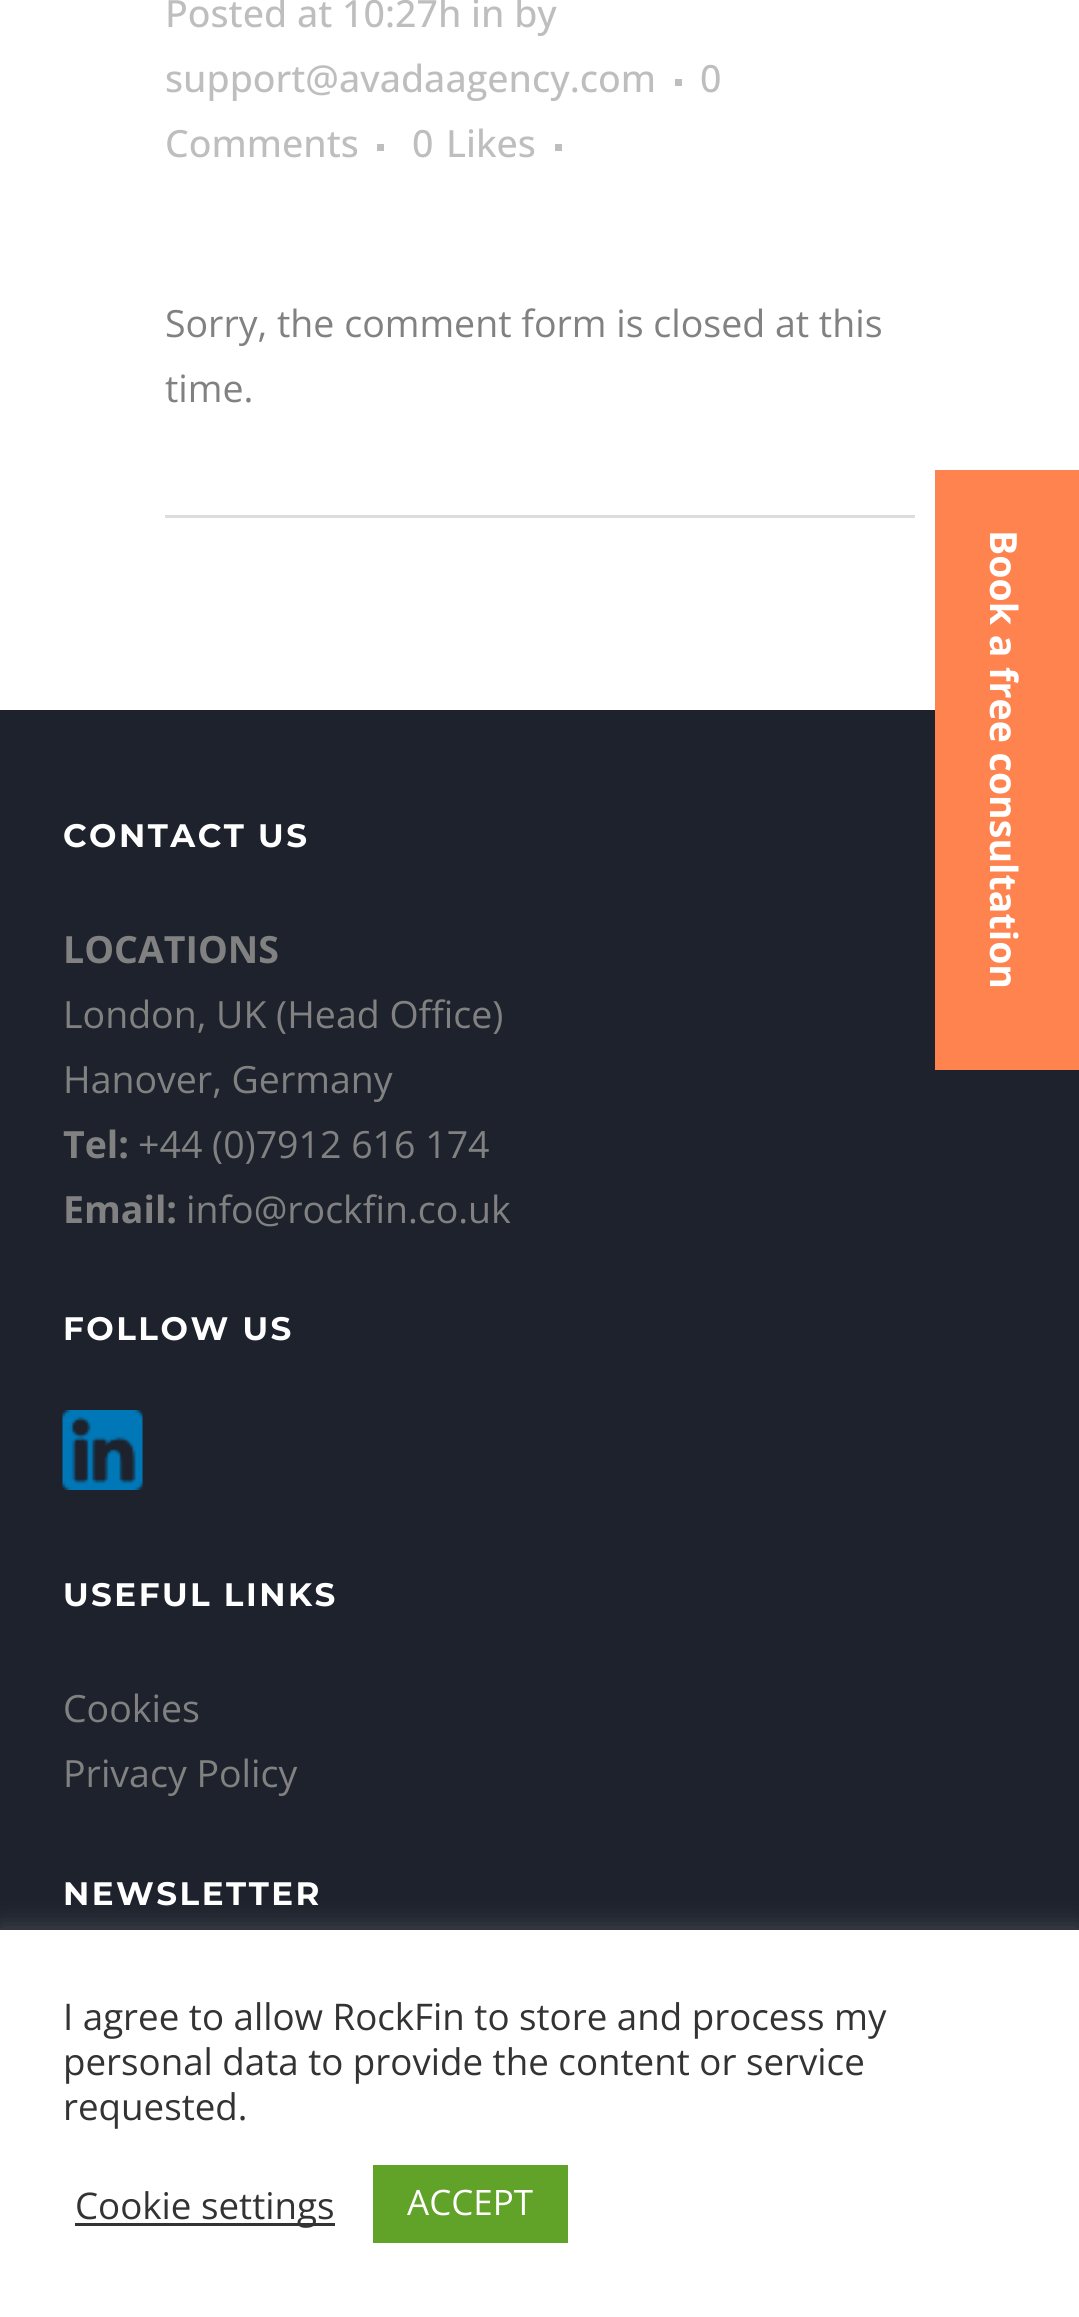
import math
import cairo

surface = cairo.ImageSurface(cairo.FORMAT_RGB24, 1079, 2317)
c = cairo.Context(surface)
options = cairo.FontOptions()
options.set_hint_metrics(cairo.HINT_METRICS_OFF)
options.set_hint_style(cairo.HINT_STYLE_NONE)
c.set_font_options(options)
c.set_miter_limit(4)
def C(code):
 c.set_source_rgb(*(v / 255 for v in bytes.fromhex(code[-6:])))
def F(family, size, italic, bold):
 c.select_font_face(family, cairo.FONT_SLANT_ITALIC if italic else cairo.FONT_SLANT_NORMAL, cairo.FONT_WEIGHT_BOLD if bold else cairo.FONT_WEIGHT_NORMAL)
 c.set_font_size(size)
def T(x, y, s):
 c.move_to(x, y)
 c.show_text(s)
def L(x, y, s, letter, word):
 c.move_to(x, y)
 for ch in s:
  c.show_text(ch)
  c.rel_move_to(letter + word * (ch == ' '), 0)
def R(x, y, w, h):
 c.rectangle(x, y, w, h)
 c.fill()
def Q(x, y, w, h, r):
 c.new_sub_path()
 for i, (u, v) in enumerate([(x + w - r, y + h - r), (x + r, y + h - r), (x + r, y + r), (x + w - r, y + r)]):
  c.arc(u, v, r, i * math.pi / 2, (i + 1) * math.pi / 2)
 c.close_path()
def S(x, y, w, h, r, blur, alpha):
 c.push_group_with_content(cairo.CONTENT_ALPHA)
 c.set_operator(cairo.OPERATOR_SOURCE)
 for i in range(15, -16, -2):
  e = blur * i / 6
  if min(w, h) + 2 * e > 0:
   c.set_source_rgba(0, 0, 0, alpha * math.erfc((i - 1) / 8.5) / 2)
   Q(x - e, y - e, w + 2 * e, h + 2 * e, max(0, min(r + e + blur * .6, min(w, h) / 2 + e)))
   c.fill()
 c.mask(c.pop_group())
def I(path, x, y, w, h):
 c.save()
 c.set_source_surface(cairo.ImageSurface.create_from_png(path), x, y)
 c.rectangle(x, y, w, h)
 c.fill()
 c.restore()
C('ffffff')
c.paint()
F('Open Sans Medium',37.5,0,0)
C('bebebe')
T(165,27,'Posted at 10:27h in by')
T(165,92,'support@avadaagency.com')
R(675,79,7,7)
T(700,92,'0')
T(165,157,'Comments')
R(377,144,7,7)
T(412,157,'0')
T(446,157,'Likes')
R(555,144,7,7)
F('Open Sans',37.5,0,0)
C('818181')
T(165,337,'Sorry, the comment form is closed at this')
T(165,402,'time.')
C('dddddd')
R(165,515,750,3)
C('1d222c')
R(0,710,1079,1220)
F('Montserrat',32.5,0,1)
C('ffffff')
L(63,847,'CONTACT US',2.5,0)
F('Open Sans',37.5,0,1)
C('818181')
T(63,963,'LOCATIONS')
F('Open Sans',37.5,0,0)
T(63,1028,'London, UK (Head Office)')
T(63,1093,'Hanover, Germany')
F('Open Sans',37.5,0,1)
T(63,1158,'Tel:')
F('Open Sans',37.5,0,0)
T(138,1158,'+44 (0)7912 616 174')
F('Open Sans',37.5,0,1)
T(63,1223,'Email:')
F('Open Sans',37.5,0,0)
T(186,1223,'info@rockfin.co.uk')
F('Montserrat',32.5,0,1)
C('ffffff')
L(63,1340,'FOLLOW US',2.5,0)
I('1.png',62,1410,81,80)
L(63,1606,'USEFUL LINKS',2.5,0)
F('Open Sans',37.5,0,0)
C('818181')
T(63,1722,'Cookies')
T(63,1787,'Privacy Policy')
F('Montserrat',32.5,0,1)
C('ffffff')
L(63,1905,'NEWSLETTER',2.5,0)
C('ff834f')
R(935,470,144,600)
F('Open Sans',37.5,0,1)
C('ffffff')
c.save()
c.translate(990,530)
c.rotate(90 * math.pi / 180)
T(0,0,'Book a free consultation')
c.restore()
C('acabab')
S(0,1928,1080,387,0,12.5,.3)
C('ffffff')
R(0,1930,1079,387)
F('Open Sans',36.7,0,0)
C('333333')
T(63,2030,'I agree to allow RockFin to store and process my')
T(63,2075,'personal data to provide the content or service')
T(63,2120,'requested.')
R(75,2223,260,3)
T(75,2219,'Cookie settings')
C('61a229')
R(373,2165,195,78)
F('Open Sans',35,0,0)
C('ffffff')
T(407,2215,'ACCEPT')
surface.write_to_png('o.png')
